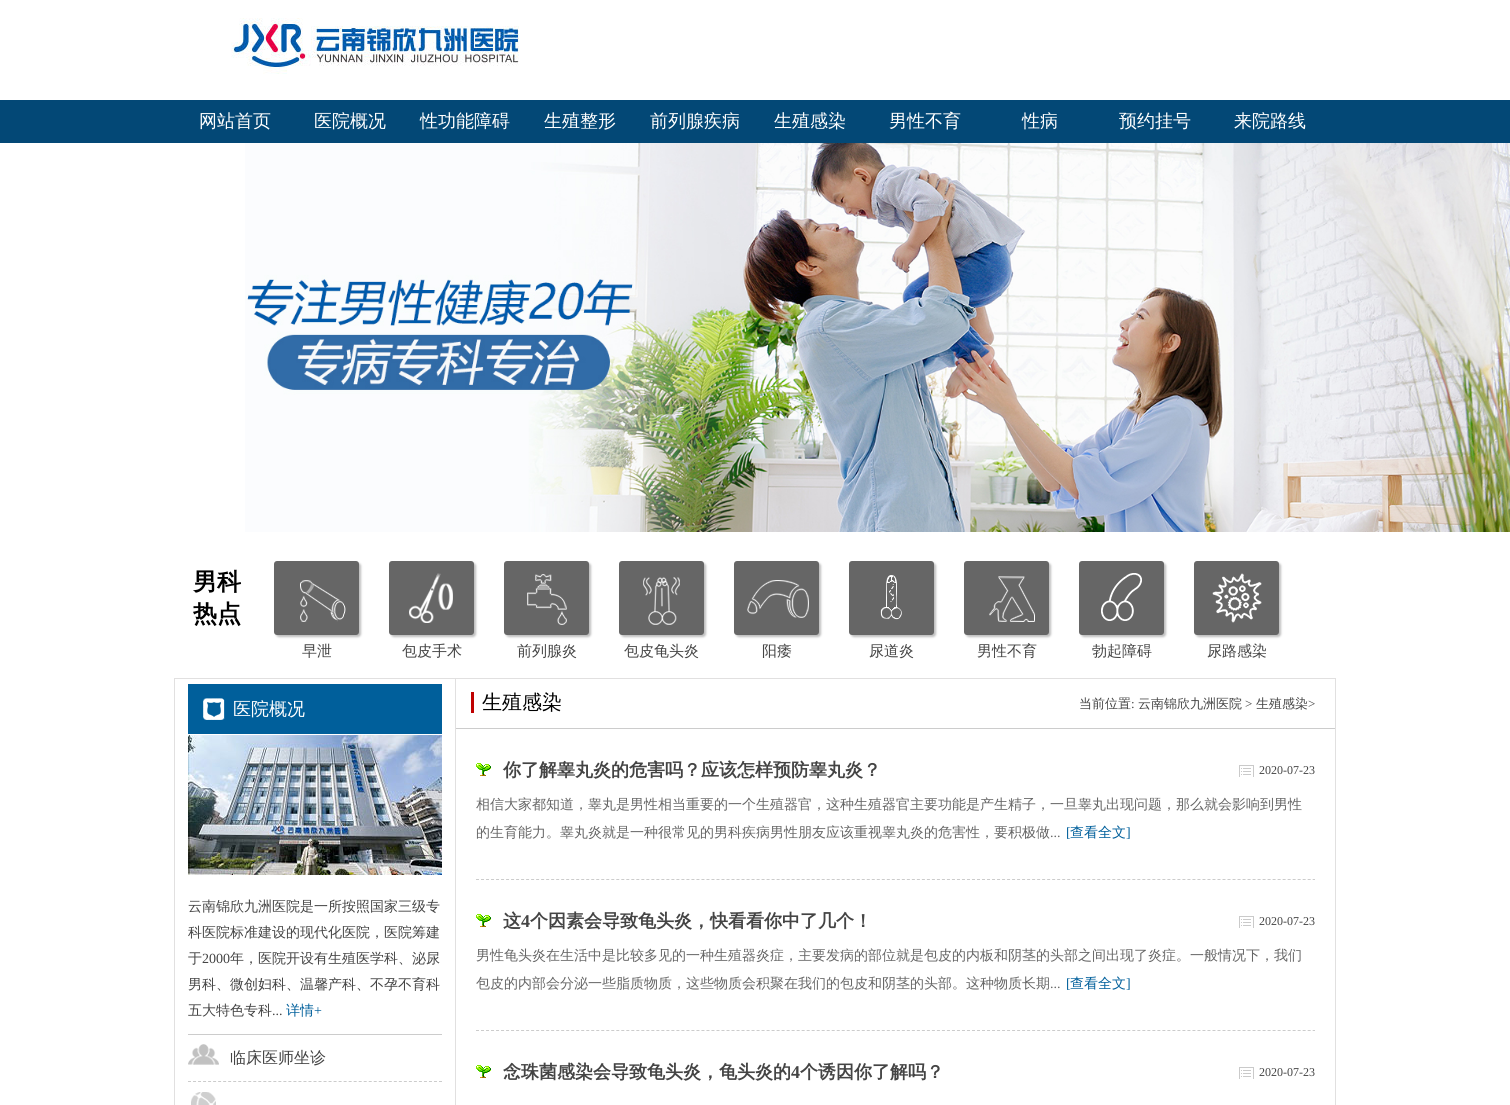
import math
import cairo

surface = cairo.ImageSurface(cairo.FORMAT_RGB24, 1510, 1105)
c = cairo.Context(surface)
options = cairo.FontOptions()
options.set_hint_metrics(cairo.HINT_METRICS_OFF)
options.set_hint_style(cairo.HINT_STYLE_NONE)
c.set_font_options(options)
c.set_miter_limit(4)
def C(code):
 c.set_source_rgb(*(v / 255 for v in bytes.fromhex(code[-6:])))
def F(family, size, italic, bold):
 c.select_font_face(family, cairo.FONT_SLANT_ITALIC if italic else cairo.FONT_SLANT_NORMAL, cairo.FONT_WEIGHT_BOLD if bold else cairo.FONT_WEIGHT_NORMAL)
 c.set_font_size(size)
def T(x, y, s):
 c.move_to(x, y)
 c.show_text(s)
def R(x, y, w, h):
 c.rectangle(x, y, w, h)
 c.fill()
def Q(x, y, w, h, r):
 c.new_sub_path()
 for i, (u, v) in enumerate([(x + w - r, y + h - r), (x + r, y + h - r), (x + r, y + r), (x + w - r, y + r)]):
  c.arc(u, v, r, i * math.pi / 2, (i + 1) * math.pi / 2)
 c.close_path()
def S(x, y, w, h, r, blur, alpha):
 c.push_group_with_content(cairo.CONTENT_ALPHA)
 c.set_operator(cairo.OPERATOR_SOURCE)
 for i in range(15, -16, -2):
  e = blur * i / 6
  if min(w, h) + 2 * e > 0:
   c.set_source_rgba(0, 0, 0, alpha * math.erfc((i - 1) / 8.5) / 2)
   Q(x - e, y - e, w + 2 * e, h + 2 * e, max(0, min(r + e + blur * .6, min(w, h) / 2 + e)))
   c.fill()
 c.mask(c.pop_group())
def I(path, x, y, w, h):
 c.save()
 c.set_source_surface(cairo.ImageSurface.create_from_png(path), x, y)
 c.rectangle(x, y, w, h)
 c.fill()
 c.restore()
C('ffffff')
c.paint()
I('1.png',231,18,288,56)
C('034876')
R(0,100,1510,43)
F('WenQuanYi Zen Hei Medium',18,0,0)
C('ffffff')
T(199,127,'网站首页')
T(314,127,'医院概况')
T(420,127,'性功能障碍')
T(544,127,'生殖整形')
T(650,127,'前列腺疾病')
T(774,127,'生殖感染')
T(889,127,'男性不育')
T(1022,127,'性病')
T(1119,127,'预约挂号')
T(1234,127,'来院路线')
I('2.png',245,143,1265,389)
F('WenQuanYi Zen Hei',24,0,1)
C('000000')
T(193,590,'男科')
T(193,622,'热点')
C('bfbfbf')
S(276,563,85,74,3,1,1)
C('666666')
Q(274,561,85,74,3)
c.fill()
I('3.png',300,580,46,42)
F('WenQuanYi Zen Hei Medium',15,0,0)
C('444444')
T(302,656,'早泄')
C('bfbfbf')
S(391,563,85,74,3,1,1)
C('666666')
Q(389,561,85,74,3)
c.fill()
I('4.png',409,573,44,50)
C('444444')
T(402,656,'包皮手术')
C('bfbfbf')
S(506,563,85,74,3,1,1)
C('666666')
Q(504,561,85,74,3)
c.fill()
I('5.png',527,574,40,51)
C('444444')
T(517,656,'前列腺炎')
C('bfbfbf')
S(621,563,85,74,3,1,1)
C('666666')
Q(619,561,85,74,3)
c.fill()
I('6.png',643,577,37,48)
C('444444')
T(624,656,'包皮龟头炎')
C('bfbfbf')
S(736,563,85,74,3,1,1)
C('666666')
Q(734,561,85,74,3)
c.fill()
I('7.png',747,580,62,38)
C('444444')
T(762,656,'阳痿')
C('bfbfbf')
S(851,563,85,74,3,1,1)
C('666666')
Q(849,561,85,74,3)
c.fill()
I('8.png',880,575,22,45)
C('444444')
T(869,656,'尿道炎')
C('bfbfbf')
S(966,563,85,74,3,1,1)
C('666666')
Q(964,561,85,74,3)
c.fill()
I('9.png',989,576,46,46)
C('444444')
T(977,656,'男性不育')
C('bfbfbf')
S(1081,563,85,74,3,1,1)
C('666666')
Q(1079,561,85,74,3)
c.fill()
I('10.png',1101,573,41,48)
C('444444')
T(1092,656,'勃起障碍')
C('bfbfbf')
S(1196,563,85,74,3,1,1)
C('666666')
Q(1194,561,85,74,3)
c.fill()
I('11.png',1212,573,50,50)
C('444444')
T(1207,656,'尿路感染')
c.rectangle(174.5,678.5,1161,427)
C('e1e0e0')
c.set_line_width(1)
c.stroke()
R(455,679,1,426)
C('005f9b')
R(188,684,254,50)
I('12.png',203,698,22,22)
F('WenQuanYi Zen Hei Medium',18,0,0)
C('ffffff')
T(233,715,'医院概况')
I('13.png',188,735,254,140)
C('cccccc')
R(188,1034,254,1)
F('WenQuanYi Zen Hei Medium',14,0,0)
C('444444')
T(188,911,'云南锦欣九洲医院是一所按照国家三级专')
T(188,937,'科医院标准建设的现代化医院，医院筹建')
T(188,963,'于')
F('Liberation Serif',14,0,0)
T(202,963,'2000')
F('WenQuanYi Zen Hei Medium',14,0,0)
T(230,963,'年，医院开设有生殖医学科、泌尿')
T(188,989,'男科、微创妇科、温馨产科、不孕不育科')
T(188,1015,'五大特色专科')
C('005f9b')
T(286,1015,'详情')
F('Liberation Serif',14,0,0)
T(314,1015,'+')
C('444444')
T(272,1015,'...')
c.new_path()
c.move_to(188,1081.5)
c.line_to(442,1081.5)
C('cccccc')
c.set_dash([3,2.02])
c.stroke()
I('14.png',188,1044,31,21)
F('WenQuanYi Zen Hei Medium',16,0,0)
C('444444')
T(230,1063,'临床医师坐诊')
I('15.png',191,1092,25,13)
C('cccccc')
R(456,728,879,1)
C('bf0101')
R(471,692,3,21)
F('WenQuanYi Zen Hei Medium',20,0,0)
C('000000')
T(482,709,'生殖感染')
F('WenQuanYi Zen Hei Medium',13,0,0)
C('444444')
T(1079,708,'当前位置')
F('Liberation Serif',13,0,0)
T(1131,708,':')
F('WenQuanYi Zen Hei Medium',13,0,0)
T(1138,708,'云南锦欣九洲医院')
F('Liberation Serif',13,0,0)
T(1245,708,'>')
F('WenQuanYi Zen Hei Medium',13,0,0)
T(1256,708,'生殖感染')
F('Liberation Serif',13,0,0)
T(1308,708,'>')
c.new_path()
c.move_to(476,879.5)
c.line_to(1315,879.5)
C('cccccc')
c.set_dash([3,2.01])
c.stroke()
I('16.png',476,763,15,13)
F('WenQuanYi Zen Hei',18,0,1)
C('444444')
T(503,776,'你了解睾丸炎的危害吗？应该怎样预防睾丸炎？')
I('17.png',1239,765,15,12)
F('Liberation Serif',12,0,0)
T(1259,774,'2020-07-23')
F('WenQuanYi Zen Hei Medium',14,0,0)
C('666666')
T(476,809,'相信大家都知道，睾丸是男性相当重要的一个生殖器官，这种生殖器官主要功能是产生精子，一旦睾丸出现问题，那么就会影响到男性')
T(476,837,'的生育能力。睾丸炎就是一种很常见的男科疾病男性朋友应该重视睾丸炎的危害性，要积极做')
F('Liberation Serif',14,0,0)
T(1050,837,'...')
C('005f9b')
T(1066,837,'[')
F('WenQuanYi Zen Hei Medium',14,0,0)
T(1070,837,'查看全文')
F('Liberation Serif',14,0,0)
T(1126,837,']')
c.new_path()
c.move_to(476,1030.5)
c.line_to(1315,1030.5)
C('cccccc')
c.stroke()
I('16.png',476,914,15,13)
F('WenQuanYi Zen Hei',18,0,1)
C('444444')
T(503,927,'这')
F('Liberation Serif',18,0,1)
T(521,927,'4')
F('WenQuanYi Zen Hei',18,0,1)
T(530,927,'个因素会导致龟头炎，快看看你中了几个！')
I('17.png',1239,916,15,12)
F('Liberation Serif',12,0,0)
T(1259,925,'2020-07-23')
F('WenQuanYi Zen Hei Medium',14,0,0)
C('666666')
T(476,960,'男性龟头炎在生活中是比较多见的一种生殖器炎症，主要发病的部位就是包皮的内板和阴茎的头部之间出现了炎症。一般情况下，我们')
T(476,988,'包皮的内部会分泌一些脂质物质，这些物质会积聚在我们的包皮和阴茎的头部。这种物质长期')
F('Liberation Serif',14,0,0)
T(1050,988,'...')
C('005f9b')
T(1066,988,'[')
F('WenQuanYi Zen Hei Medium',14,0,0)
T(1070,988,'查看全文')
F('Liberation Serif',14,0,0)
T(1126,988,']')
I('16.png',476,1065,15,13)
F('WenQuanYi Zen Hei',18,0,1)
C('444444')
T(503,1078,'念珠菌感染会导致龟头炎，龟头炎的')
F('Liberation Serif',18,0,1)
T(791,1078,'4')
F('WenQuanYi Zen Hei',18,0,1)
T(800,1078,'个诱因你了解吗？')
I('17.png',1239,1067,15,12)
F('Liberation Serif',12,0,0)
T(1259,1076,'2020-07-23')
surface.write_to_png('o.png')
